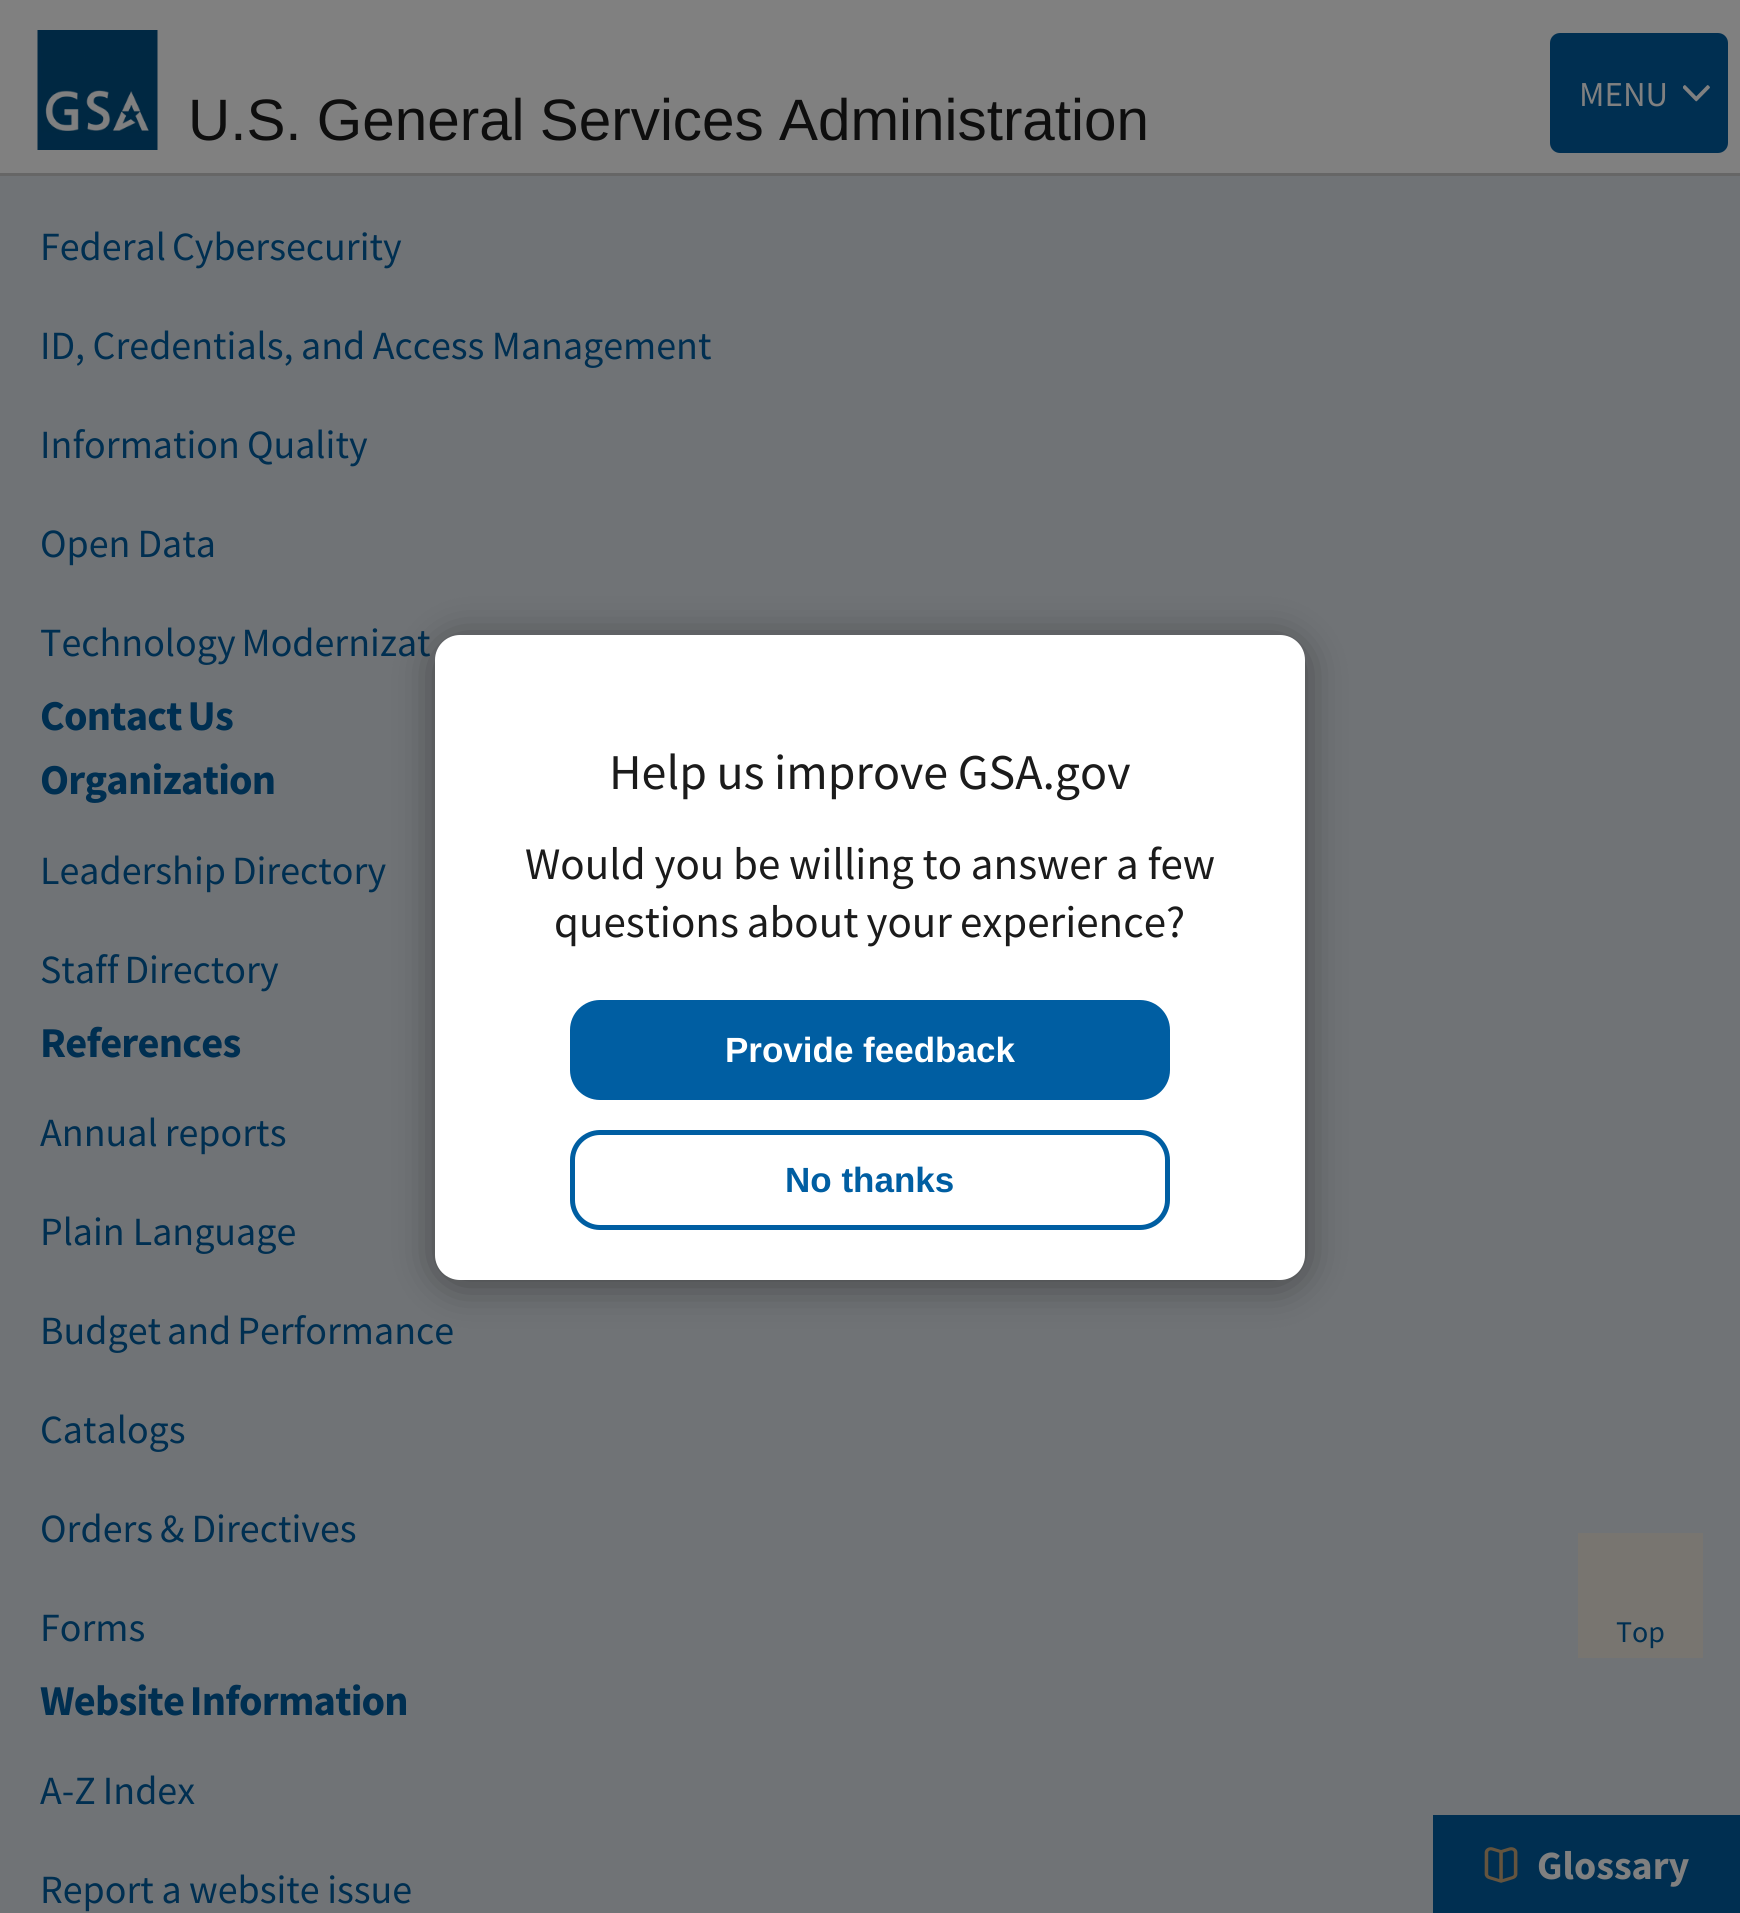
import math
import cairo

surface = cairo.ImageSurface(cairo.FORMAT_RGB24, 1740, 1913)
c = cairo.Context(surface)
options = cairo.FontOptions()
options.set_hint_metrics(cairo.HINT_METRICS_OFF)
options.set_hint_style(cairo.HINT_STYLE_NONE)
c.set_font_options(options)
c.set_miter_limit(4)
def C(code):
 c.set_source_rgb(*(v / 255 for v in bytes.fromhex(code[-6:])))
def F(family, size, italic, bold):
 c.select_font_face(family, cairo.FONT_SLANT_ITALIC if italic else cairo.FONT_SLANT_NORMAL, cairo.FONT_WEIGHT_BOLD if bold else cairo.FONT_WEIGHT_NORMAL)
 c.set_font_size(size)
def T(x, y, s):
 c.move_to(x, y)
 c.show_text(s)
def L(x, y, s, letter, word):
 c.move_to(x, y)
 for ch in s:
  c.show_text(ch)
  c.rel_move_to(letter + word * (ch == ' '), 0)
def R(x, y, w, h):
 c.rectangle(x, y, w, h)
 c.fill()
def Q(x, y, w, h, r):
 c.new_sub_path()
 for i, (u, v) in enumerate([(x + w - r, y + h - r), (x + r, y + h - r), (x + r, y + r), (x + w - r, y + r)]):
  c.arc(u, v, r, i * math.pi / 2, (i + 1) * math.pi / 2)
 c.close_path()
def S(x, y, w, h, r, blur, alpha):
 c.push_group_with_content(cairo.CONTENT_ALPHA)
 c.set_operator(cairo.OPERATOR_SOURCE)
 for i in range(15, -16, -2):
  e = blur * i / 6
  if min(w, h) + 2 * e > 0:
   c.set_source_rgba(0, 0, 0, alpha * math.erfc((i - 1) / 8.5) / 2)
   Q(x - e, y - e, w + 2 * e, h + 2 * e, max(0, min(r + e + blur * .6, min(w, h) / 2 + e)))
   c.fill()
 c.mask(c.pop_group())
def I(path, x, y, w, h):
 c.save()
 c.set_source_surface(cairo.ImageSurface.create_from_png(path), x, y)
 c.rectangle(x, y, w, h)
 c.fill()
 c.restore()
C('707376')
c.paint()
C('808080')
R(0,0,1740,173)
C('666666')
R(0,173,1740,3)
I('1.png',37,30,121,120)
F('Liberation Sans',58.4,0,0)
C('0e0e0e')
L(188,140,'U.S. General Services Administration',0,-1)
C('002f51')
Q(1550,33,178,120,10)
c.fill()
I('2.png',1683,85,27,17)
F('Source Sans Pro',35,0,0)
C('808080')
T(1579,106,'MENU')
F('Source Sans Pro',40,0,0)
C('002f51')
L(40,260,'Federal Cybersecurity',0,-2)
L(40,359,'ID, Credentials, and Access Management',0,-.5)
L(40,458,'Information Quality',0,-1)
L(40,557,'Open Data',0,-1)
L(40,656,'Technology Modernizat',0,-2)
F('Source Sans Pro',42.5,0,1)
L(40,730,'Contact Us',-.8,-2)
L(40,794,'Organization',-.8,0)
F('Source Sans Pro',40,0,0)
L(40,884,'Leadership Directory',0,-2)
L(40,983,'Staff Directory',0,-2)
F('Source Sans Pro',42.5,0,1)
L(40,1057,'References',-.8,0)
F('Source Sans Pro',40,0,0)
L(40,1146,'Annual reports',0,-1)
T(40,1245,'Plain Language')
L(40,1344,'Budget and Performance',0,-2)
T(40,1443,'Catalogs')
L(40,1542,'Orders & Directives',0,-1)
T(40,1641,'Forms')
F('Source Sans Pro',42.5,0,1)
L(40,1715,'Website Information',-.8,-2)
F('Source Sans Pro',40,0,0)
L(40,1804,'A-Z Index',0,-1)
L(40,1903,'Report a website issue',0,-.5)
C('787570')
R(1578,1533,125,125)
F('Source Sans Pro',30,0,0)
C('002f51')
T(1616,1642,'Top')
R(1433,1815,307,98)
I('3.png',1484,1847,34,36)
F('Source Sans Pro',40,0,1)
C('808080')
T(1537,1879,'Glossary')
C('000000')
S(435,640,870,645,25,20,.4)
C('ffffff')
Q(435,635,870,645,25)
c.fill()
F('Source Sans Pro',50,0,0)
C('1b1b1b')
L(609,789,'Help us improve GSA.gov',0,-.5)
F('Source Sans Pro',45,0,0)
L(525,879,'Would you be willing to answer a few',0,-.25)
L(554,937,'questions about your experience?',0,-1)
C('005ea2')
Q(572.5,1002.5,595,95,27.5)
c.fill_preserve()
c.set_line_width(5)
c.stroke()
F('Liberation Sans',35,0,1)
C('ffffff')
T(725,1062,'Provide feedback')
Q(572.5,1132.5,595,95,27.5)
C('005ea2')
c.stroke()
T(785,1192,'No thanks')
surface.write_to_png('o.png')
